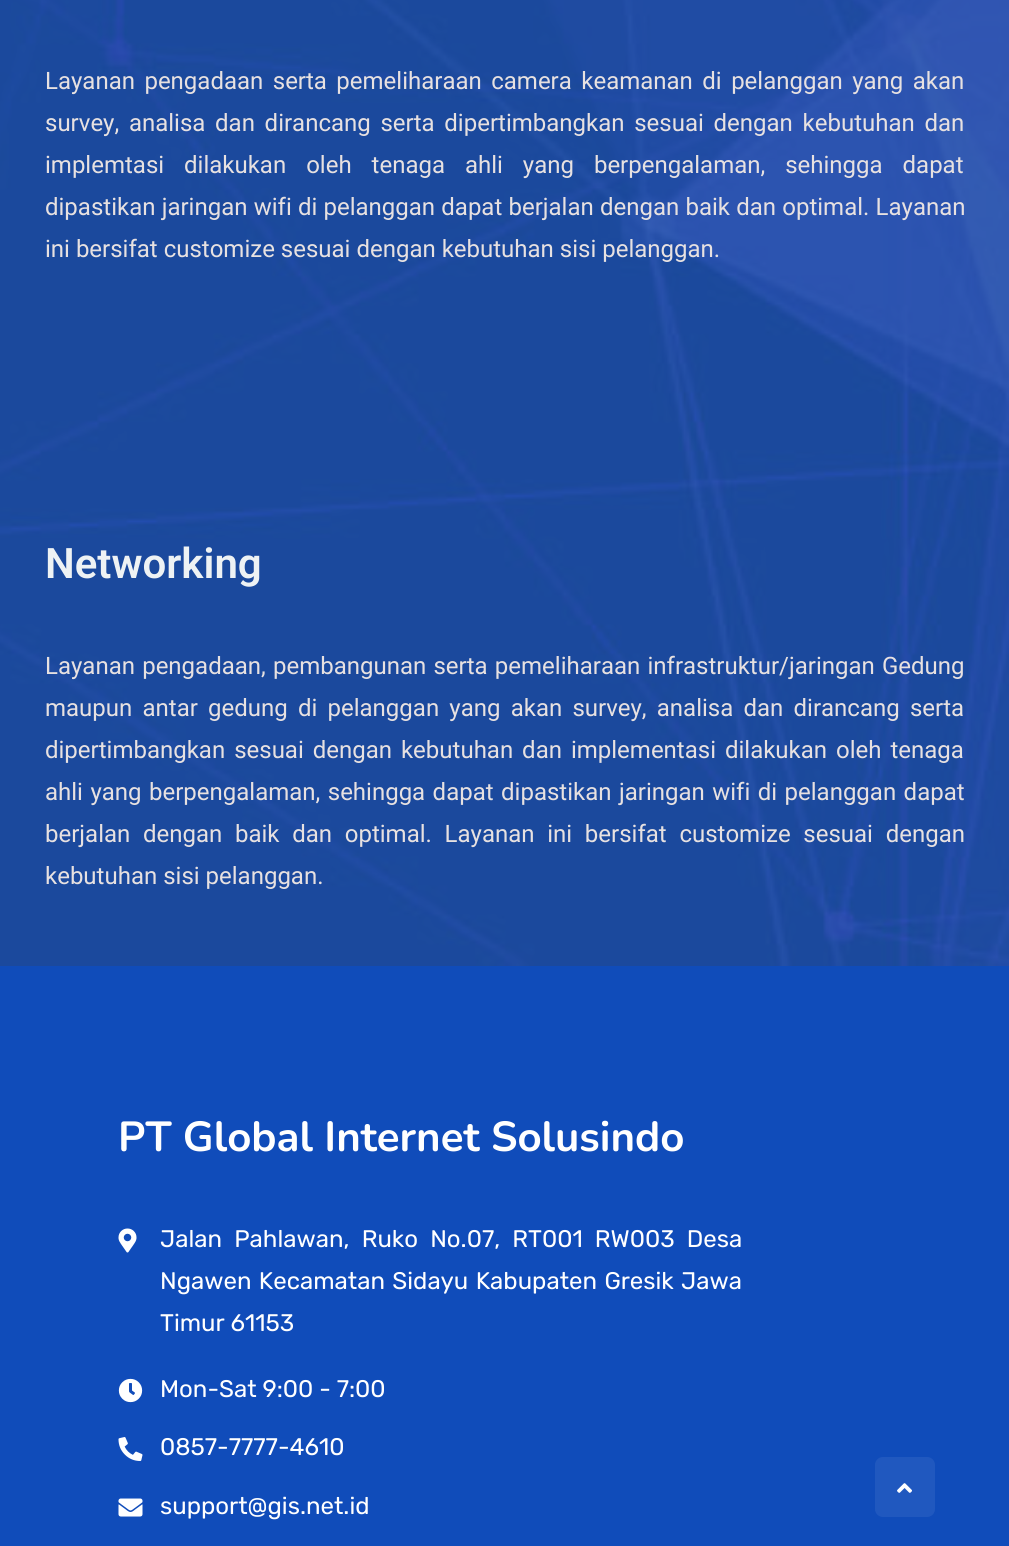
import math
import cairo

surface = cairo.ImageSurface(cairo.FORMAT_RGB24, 1009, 1546)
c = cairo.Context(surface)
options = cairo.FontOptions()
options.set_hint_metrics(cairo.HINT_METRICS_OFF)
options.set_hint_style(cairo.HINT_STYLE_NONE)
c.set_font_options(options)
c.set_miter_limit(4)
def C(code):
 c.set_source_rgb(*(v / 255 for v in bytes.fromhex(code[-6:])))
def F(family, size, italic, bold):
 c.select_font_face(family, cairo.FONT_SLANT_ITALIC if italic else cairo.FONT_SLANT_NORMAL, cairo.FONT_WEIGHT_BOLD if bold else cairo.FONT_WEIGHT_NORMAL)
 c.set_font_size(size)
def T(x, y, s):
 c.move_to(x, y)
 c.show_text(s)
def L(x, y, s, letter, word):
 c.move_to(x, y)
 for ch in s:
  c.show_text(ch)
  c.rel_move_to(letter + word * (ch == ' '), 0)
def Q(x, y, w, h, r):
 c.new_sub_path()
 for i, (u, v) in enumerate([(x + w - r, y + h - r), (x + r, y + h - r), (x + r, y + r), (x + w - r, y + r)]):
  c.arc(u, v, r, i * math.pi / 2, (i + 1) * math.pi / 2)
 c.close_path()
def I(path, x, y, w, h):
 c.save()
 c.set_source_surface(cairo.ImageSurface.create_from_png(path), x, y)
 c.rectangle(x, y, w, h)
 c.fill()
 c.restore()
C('104cba')
c.paint()
I('1.png',0,0,1009,966)
F('Roboto',24,0,0)
C('e7e1e1')
L(45,89,'Layanan pengadaan serta pemeliharaan camera keamanan di pelanggan yang akan',0,3.5)
L(45,131,'survey, analisa dan dirancang serta dipertimbangkan sesuai dengan kebutuhan dan',0,3.75)
L(45,173,'implemtasi dilakukan oleh tenaga ahli yang berpengalaman, sehingga dapat',0,14)
L(45,215,'dipastikan jaringan wifi di pelanggan dapat berjalan dengan baik dan optimal. Layanan',0,.25)
T(45,257,'ini bersifat customize sesuai dengan kebutuhan sisi pelanggan.')
F('Roboto SemiBold',42,0,0)
C('eef2f4')
T(45,578,'Networking')
F('Roboto',24,0,0)
C('e7e1e1')
L(45,674,'Layanan pengadaan, pembangunan serta pemeliharaan infrastruktur/jaringan Gedung',0,1.25)
L(45,716,'maupun antar gedung di pelanggan yang akan survey, analisa dan dirancang serta',0,4.25)
L(45,758,'dipertimbangkan sesuai dengan kebutuhan dan implementasi dilakukan oleh tenaga',0,3)
L(45,800,'ahli yang berpengalaman, sehingga dapat dipastikan jaringan wifi di pelanggan dapat',0,1.5)
L(45,842,'berjalan dengan baik dan optimal. Layanan ini bersifat customize sesuai dengan',0,6.75)
T(45,884,'kebutuhan sisi pelanggan.')
F('Nunito ExtraLight',42,0,0)
C('ffffff')
T(118,1151,'PT Global Internet Solusindo')
I('2.png',118,1228,19,25)
F('Rubik',24,0,0)
L(160,1247,'Jalan Pahlawan, Ruko No.07, RT001 RW003 Desa',0,6.25)
L(160,1289,'Ngawen Kecamatan Sidayu Kabupaten Gresik Jawa',0,1.5)
T(160,1331,'Timur 61153')
I('3.png',118,1378,25,25)
T(160,1397,'Mon-Sat 9:00 - 7:00')
I('4.png',118,1437,25,24)
T(160,1455,'0857-7777-4610')
I('5.png',118,1498,25,19)
T(160,1514,'support@gis.net.id')
C('2058bf')
Q(875,1457,60,60,8)
c.fill()
I('6.png',897,1483,15,10)
surface.write_to_png('o.png')
